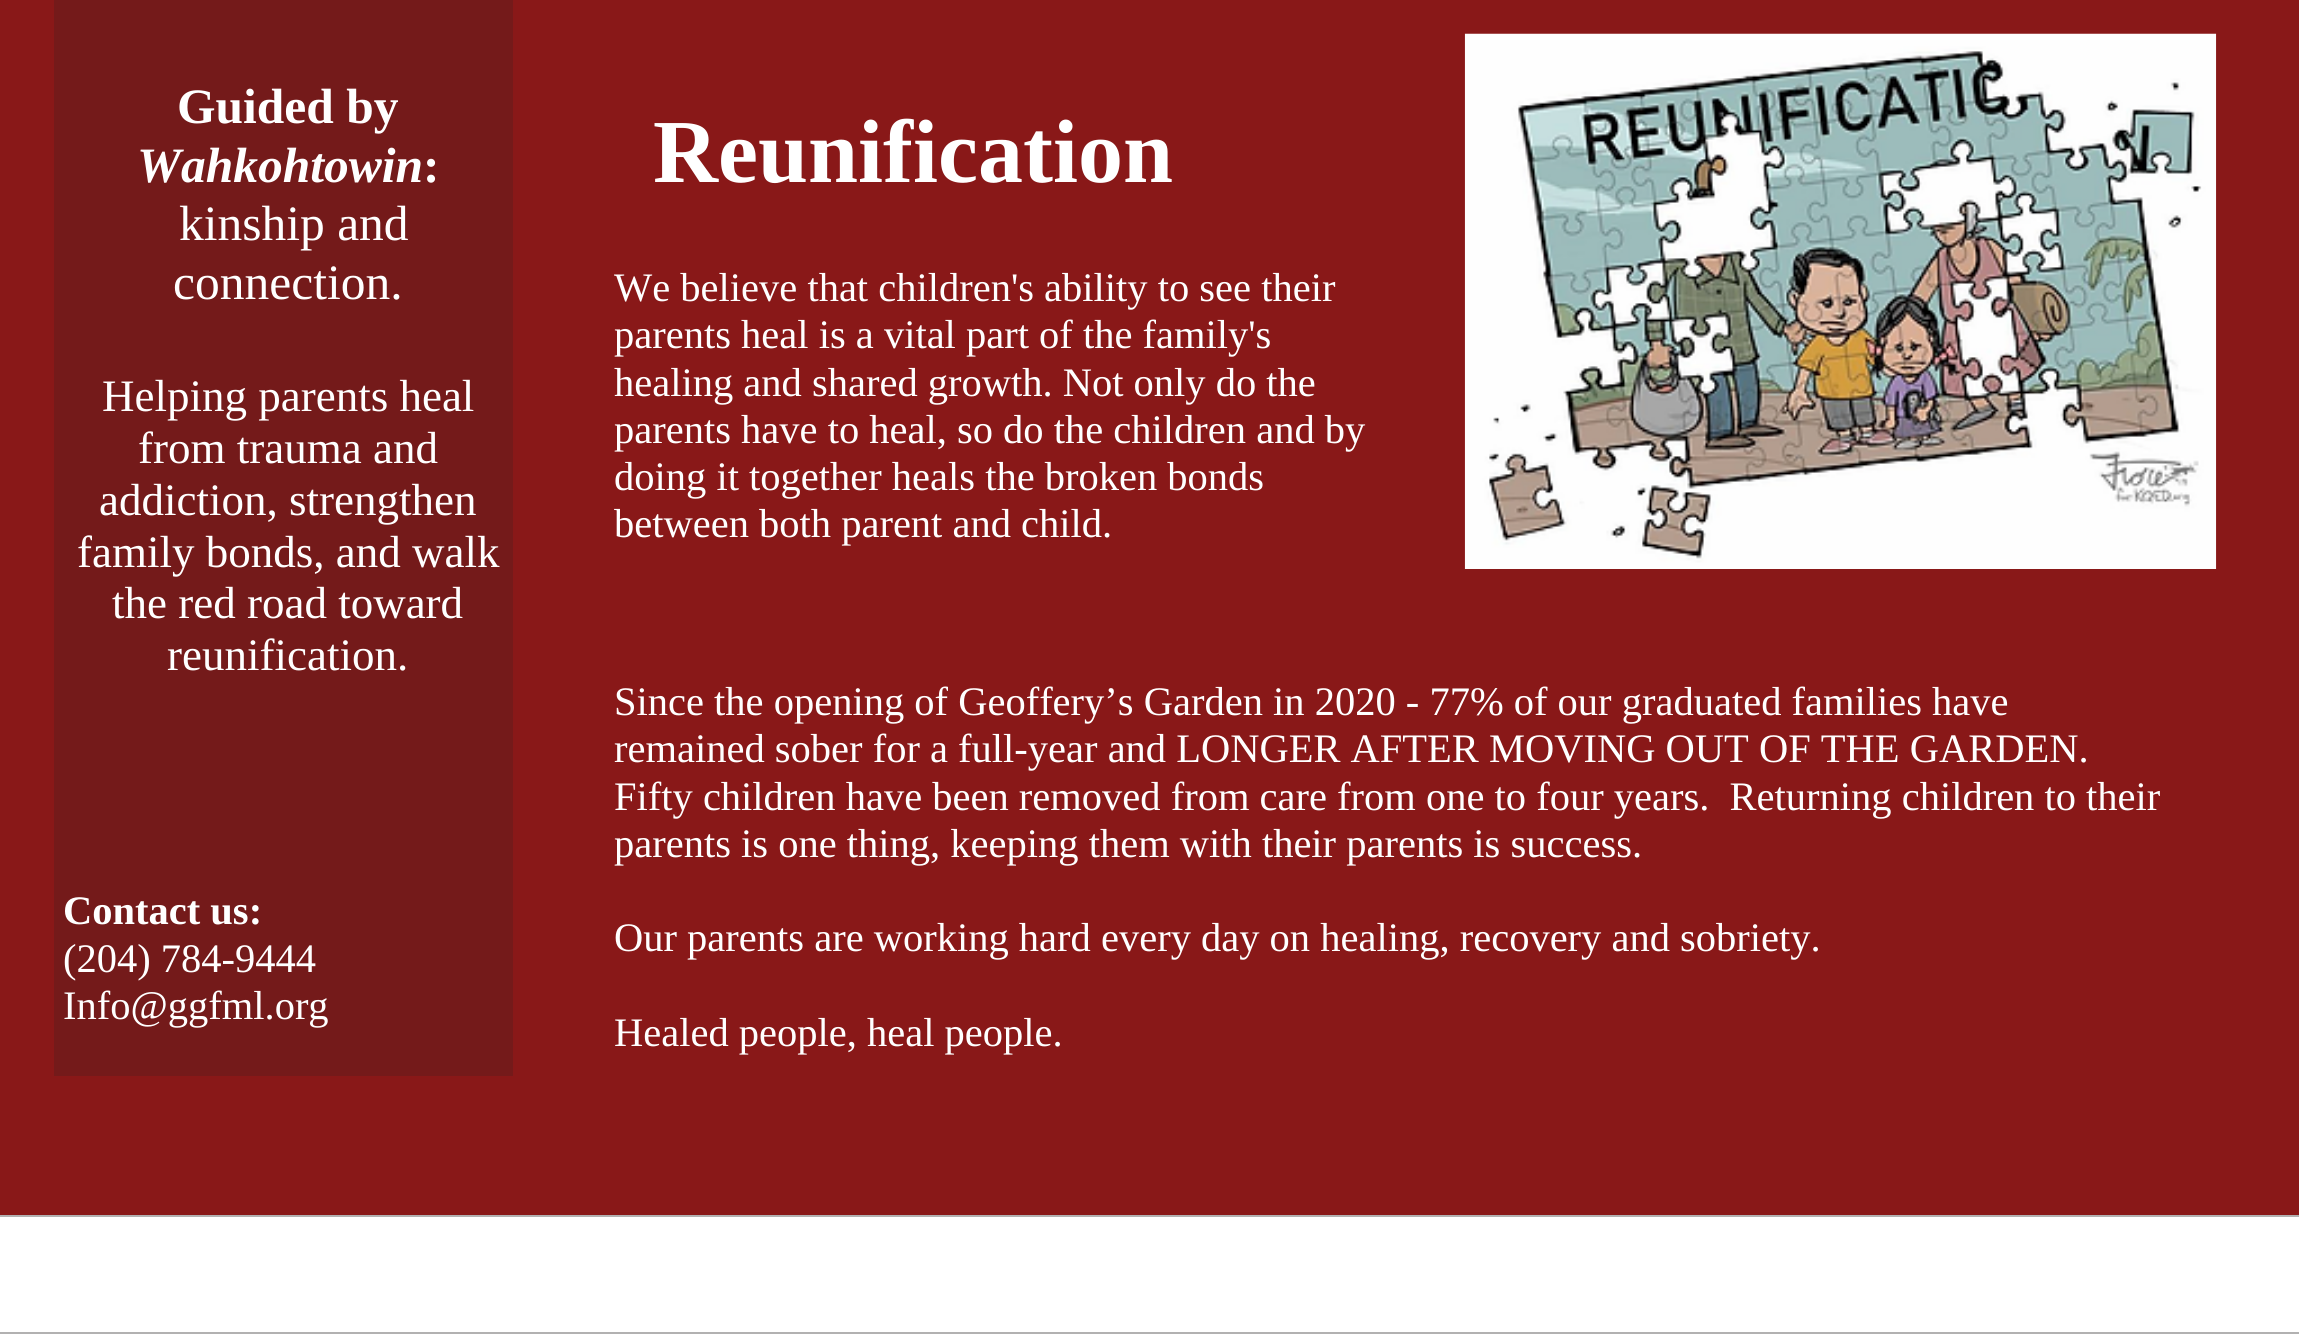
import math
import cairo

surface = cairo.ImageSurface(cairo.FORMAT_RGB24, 2299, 1338)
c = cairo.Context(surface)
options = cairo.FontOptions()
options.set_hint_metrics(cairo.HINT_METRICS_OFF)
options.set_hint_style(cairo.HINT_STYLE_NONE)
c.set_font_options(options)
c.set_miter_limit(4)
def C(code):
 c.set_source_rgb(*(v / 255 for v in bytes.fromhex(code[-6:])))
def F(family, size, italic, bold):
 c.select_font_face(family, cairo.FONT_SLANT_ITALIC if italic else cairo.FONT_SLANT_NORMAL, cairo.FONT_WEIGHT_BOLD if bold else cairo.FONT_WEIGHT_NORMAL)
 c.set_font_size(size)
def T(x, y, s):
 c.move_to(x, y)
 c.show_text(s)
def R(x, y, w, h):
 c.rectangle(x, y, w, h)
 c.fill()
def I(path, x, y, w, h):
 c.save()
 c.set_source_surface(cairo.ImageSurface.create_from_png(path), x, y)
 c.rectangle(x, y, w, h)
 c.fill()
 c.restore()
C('ffffff')
c.paint()
C('891818')
R(0,0,2299,1215)
C('741a1a')
R(54,0,459,1076)
F('Liberation Serif',49.5,0,1)
C('ffffff')
T(177,123,'Guided by')
F('Liberation Serif',49.5,1,1)
T(137,182,'Wahkohtowin')
F('Liberation Serif',49.5,0,1)
T(423,182,':')
F('Liberation Serif',49.5,0,0)
T(179,240,'kinship and')
T(173,299,'connection.')
F('Liberation Serif',45,0,0)
T(102,411,'Helping parents heal')
T(138,463,'from trauma and')
T(99,515,'addiction, strengthen')
T(77,567,'family bonds, and walk')
T(112,618,'the red road toward')
T(167,670,'reunification.')
F('Liberation Serif',40.5,0,1)
T(63,924,'Contact us:')
F('Liberation Serif',40.5,0,0)
T(63,972,'(204) 784-9444')
T(63,1019,'Info@ggfml.org')
F('Liberation Serif',90,0,1)
T(653,182,'Reunification')
I('1.png',1464,33,753,536)
F('Liberation Serif',40.5,0,0)
T(614,301,'We believe that children\'s ability to see their')
T(614,348,'parents heal is a vital part of the family\'s')
T(614,396,'healing and shared growth. Not only do the')
T(614,443,'parents have to heal, so do the children and by')
T(614,490,'doing it together heals the broken bonds')
T(614,537,'between both parent and child.')
T(614,715,'Since the opening of Geoffery’s Garden in 2020 - 77% of our graduated families have')
T(614,762,'remained sober for a full-year and LONGER AFTER MOVING OUT OF THE GARDEN.')
T(614,810,'Fifty children have been removed from care from one to four years.  Returning children to their')
T(614,857,'parents is one thing, keeping them with their parents is success.')
T(614,951,'Our parents are working hard every day on healing, recovery and sobriety.')
T(614,1046,'Healed people, heal people.')
C('b2b1b1')
R(0,1215,2299,2)
R(0,1332,2299,2)
surface.write_to_png('o.png')
